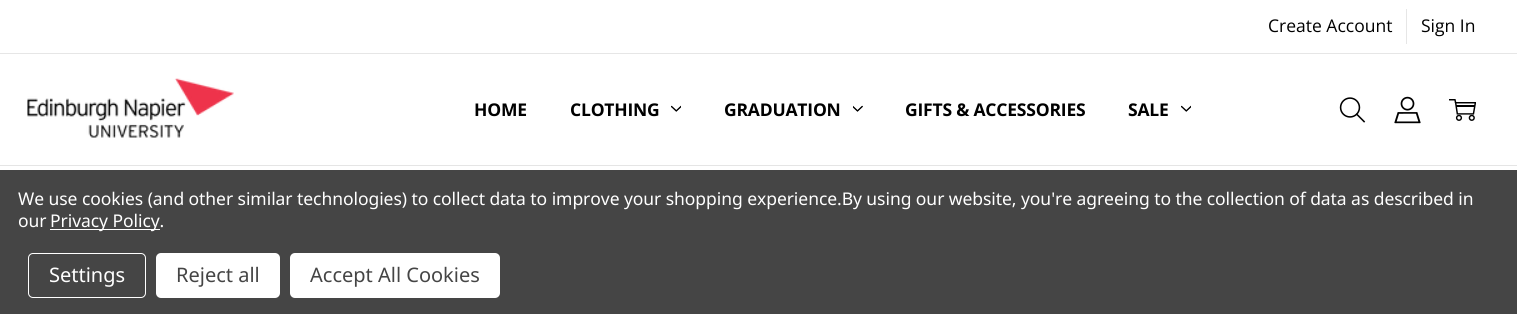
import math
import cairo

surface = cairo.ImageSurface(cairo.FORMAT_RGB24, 1517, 314)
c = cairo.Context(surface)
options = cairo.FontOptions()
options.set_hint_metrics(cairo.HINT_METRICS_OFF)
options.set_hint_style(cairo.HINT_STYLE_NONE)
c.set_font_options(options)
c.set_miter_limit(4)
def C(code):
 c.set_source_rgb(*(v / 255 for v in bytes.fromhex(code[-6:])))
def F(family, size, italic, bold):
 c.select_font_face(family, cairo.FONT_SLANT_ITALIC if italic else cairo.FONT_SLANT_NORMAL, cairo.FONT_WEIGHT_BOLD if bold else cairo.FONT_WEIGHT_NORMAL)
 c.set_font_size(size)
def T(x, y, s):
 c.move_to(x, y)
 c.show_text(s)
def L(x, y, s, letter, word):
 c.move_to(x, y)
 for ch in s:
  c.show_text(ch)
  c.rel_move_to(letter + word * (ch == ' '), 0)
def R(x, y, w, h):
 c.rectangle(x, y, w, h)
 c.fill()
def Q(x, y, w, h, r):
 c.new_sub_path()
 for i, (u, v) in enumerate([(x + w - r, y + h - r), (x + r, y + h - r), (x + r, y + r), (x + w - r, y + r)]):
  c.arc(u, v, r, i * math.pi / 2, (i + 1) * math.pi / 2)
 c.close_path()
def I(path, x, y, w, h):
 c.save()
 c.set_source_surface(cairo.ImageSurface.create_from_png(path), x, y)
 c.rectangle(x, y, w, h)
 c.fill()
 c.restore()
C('ffffff')
c.paint()
C('e5e5e5')
R(0,165,1517,1)
C('e6e6e6')
R(0,53,1517,1)
F('Open Sans',17.5,0,0)
C('000000')
T(1268,32,'Create Account')
C('e6e6e6')
R(1406,9,1,35)
C('000000')
T(1421,32,'Sign In')
I('1.png',27,78,207,60)
F('Open Sans',17.5,0,1)
L(474,116,'HOME',-.2,0)
L(570,116,'CLOTHING',-.2,0)
I('2.png',671,105,10,7)
L(724,116,'GRADUATION',-.2,0)
I('3.png',853,105,10,7)
L(905,116,'GIFTS & ACCESSORIES',-.2,0)
L(1128,116,'SALE',-.2,0)
I('2.png',1181,105,10,7)
I('4.png',1339,97,27,26)
I('5.png',1394,96,27,28)
I('6.png',1449,99,27,22)
C('454545')
R(0,170,1517,144)
F('Noto Sans',17.5,0,0)
C('ffffff')
L(18,205,'We use cookies (and other similar technologies) to collect data to improve your shopping experience.By using our website, you\'re agreeing to the collection of data as described in',-.06,0)
L(18,227,'our',-.06,0)
R(50,229,110,1)
L(50,227,'Privacy Policy.',-.06,0)
Q(28.5,253.5,117,44,4.5)
c.set_line_width(1)
c.stroke()
F('Noto Sans',20,0,0)
T(49,282,'Settings')
Q(156,253,124,45,5)
c.fill()
C('454545')
T(176,282,'Reject all')
C('ffffff')
Q(290,253,210,45,5)
c.fill()
C('454545')
T(310,282,'Accept All Cookies')
surface.write_to_png('o.png')
